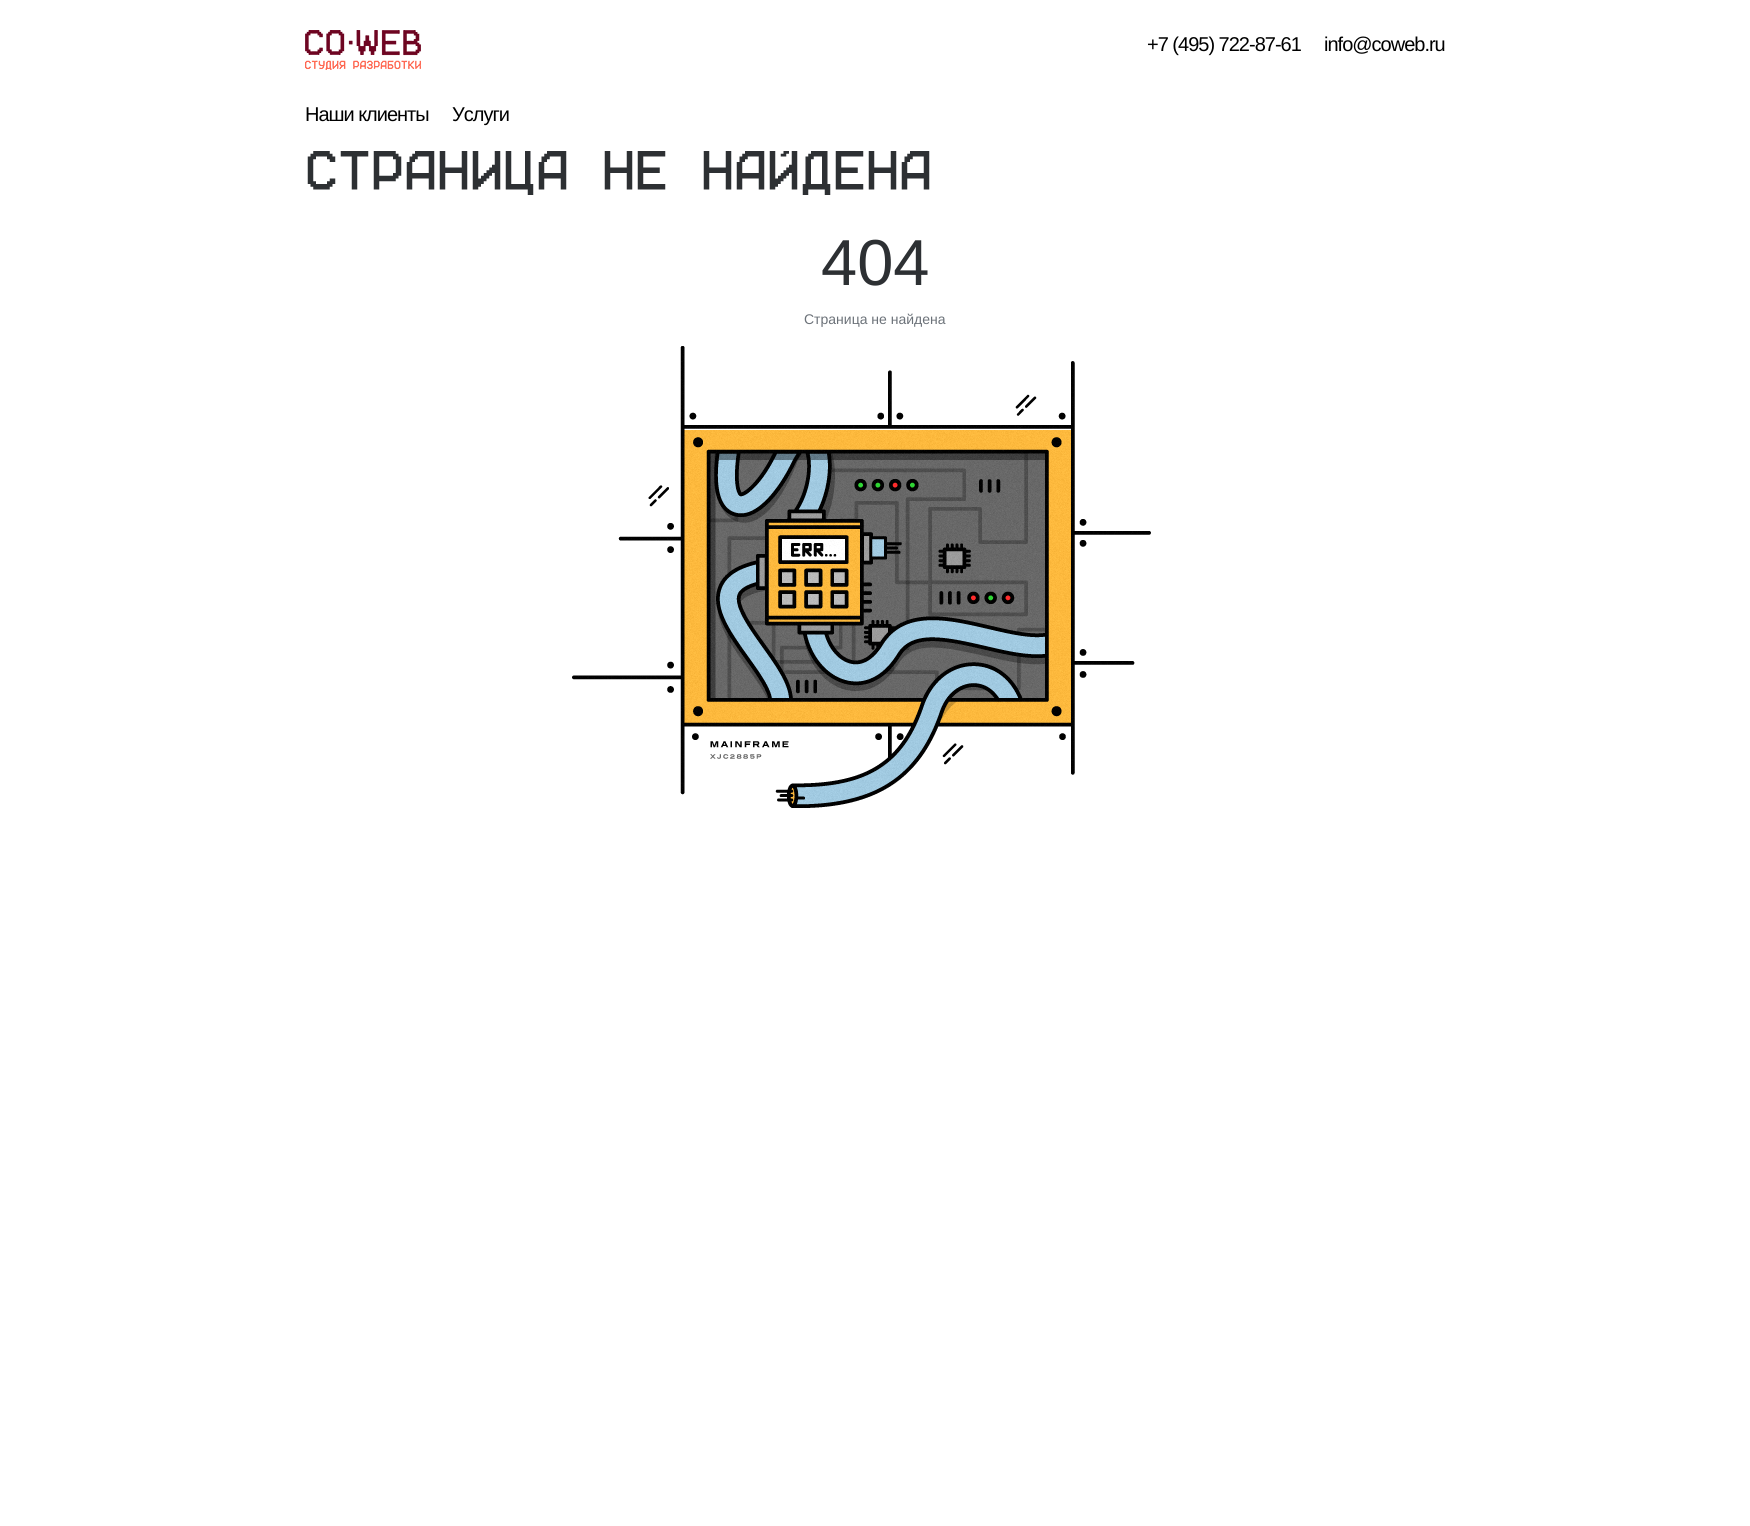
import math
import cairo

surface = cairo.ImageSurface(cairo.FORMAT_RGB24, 1750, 1526)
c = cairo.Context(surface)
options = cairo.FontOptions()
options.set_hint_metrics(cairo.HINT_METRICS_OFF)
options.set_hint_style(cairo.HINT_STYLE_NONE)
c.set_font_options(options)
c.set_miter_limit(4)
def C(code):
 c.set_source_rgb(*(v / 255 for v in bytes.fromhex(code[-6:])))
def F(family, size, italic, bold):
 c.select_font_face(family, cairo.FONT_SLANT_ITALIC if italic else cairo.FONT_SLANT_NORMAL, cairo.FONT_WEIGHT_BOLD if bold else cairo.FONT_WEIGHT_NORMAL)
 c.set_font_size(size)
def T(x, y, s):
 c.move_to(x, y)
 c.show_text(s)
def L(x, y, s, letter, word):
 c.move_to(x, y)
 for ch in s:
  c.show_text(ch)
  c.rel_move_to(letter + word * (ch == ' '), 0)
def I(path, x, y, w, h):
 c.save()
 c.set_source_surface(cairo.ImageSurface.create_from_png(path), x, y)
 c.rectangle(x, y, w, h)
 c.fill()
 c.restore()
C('ffffff')
c.paint()
I('1.png',305,30,116,40)
F('Liberation Sans',20,0,0)
C('000000')
L(1147,51,'+7 (495) 722-87-61',-1,0)
L(1324,51,'info@coweb.ru',-1,0)
L(305,121,'Наши клиенты',-1,0)
L(452,121,'Услуги',-1,0)
F('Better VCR',44,0,0)
C('2d3033')
T(305,195,'СТРАНИЦА НЕ НАЙДЕНА')
F('Liberation Sans',65,0,0)
T(821,285,'404')
F('Liberation Sans',14,0,0)
C('6c7279')
T(804,324,'Страница не найдена')
I('2.png',572,346,579,462)
surface.write_to_png('o.png')
